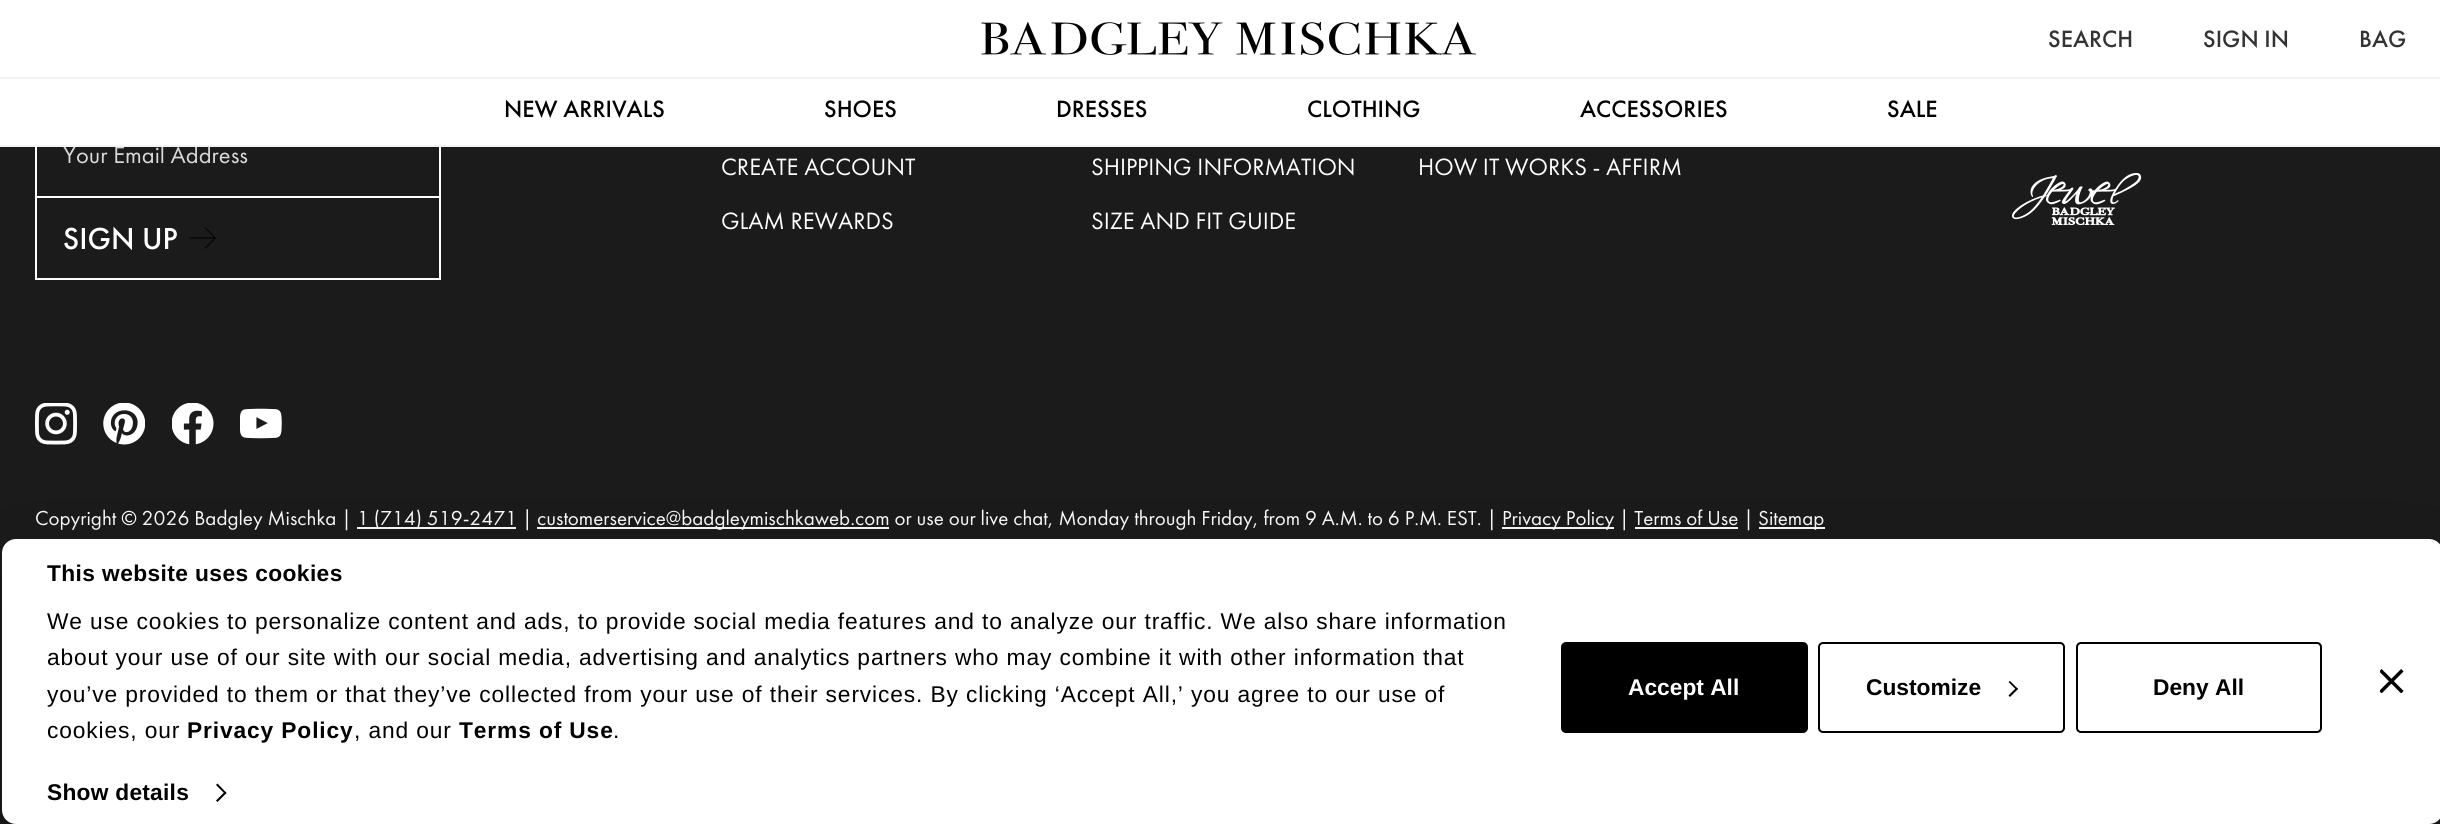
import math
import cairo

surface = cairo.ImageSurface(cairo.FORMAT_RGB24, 2440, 824)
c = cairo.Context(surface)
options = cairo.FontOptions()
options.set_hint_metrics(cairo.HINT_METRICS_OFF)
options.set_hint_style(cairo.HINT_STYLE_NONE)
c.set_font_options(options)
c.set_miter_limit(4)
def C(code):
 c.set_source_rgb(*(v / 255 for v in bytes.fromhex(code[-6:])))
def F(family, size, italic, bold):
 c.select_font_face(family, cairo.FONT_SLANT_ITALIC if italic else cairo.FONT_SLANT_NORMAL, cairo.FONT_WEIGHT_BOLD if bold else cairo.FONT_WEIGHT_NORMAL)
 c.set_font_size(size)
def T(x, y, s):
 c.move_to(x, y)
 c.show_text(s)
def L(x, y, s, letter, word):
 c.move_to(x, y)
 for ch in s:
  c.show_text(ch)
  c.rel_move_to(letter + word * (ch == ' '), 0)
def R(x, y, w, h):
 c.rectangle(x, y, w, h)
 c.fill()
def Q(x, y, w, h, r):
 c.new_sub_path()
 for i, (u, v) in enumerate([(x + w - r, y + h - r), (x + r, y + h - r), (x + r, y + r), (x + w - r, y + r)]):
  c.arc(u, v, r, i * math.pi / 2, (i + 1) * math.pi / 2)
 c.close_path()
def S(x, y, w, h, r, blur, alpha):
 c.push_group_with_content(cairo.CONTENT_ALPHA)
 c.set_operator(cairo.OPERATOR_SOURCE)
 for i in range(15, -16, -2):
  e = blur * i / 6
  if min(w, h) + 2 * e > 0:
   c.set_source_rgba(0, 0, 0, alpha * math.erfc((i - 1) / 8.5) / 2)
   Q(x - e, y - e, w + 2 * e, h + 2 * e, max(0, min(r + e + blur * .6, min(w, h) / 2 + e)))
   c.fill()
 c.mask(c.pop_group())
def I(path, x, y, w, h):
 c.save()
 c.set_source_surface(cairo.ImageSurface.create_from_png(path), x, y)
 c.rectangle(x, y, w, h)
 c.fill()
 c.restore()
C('1b1b1b')
c.paint()
F('Futura PT',24.5,0,0)
C('d9d9d9')
T(63,163,'Your Email Address')
C('f4f4f4')
R(0,145,2440,2)
C('ffffff')
R(0,0,2440,77)
I('1.png',981,22,495,33)
F('Futura PT Medium',24.5,0,0)
C('333333')
T(2048,47,'SEARCH')
T(2203,47,'SIGN IN')
T(2359,47,'BAG')
C('ffffff')
R(0,79,2440,66)
C('f4f4f4')
R(0,77,2440,2)
C('000000')
T(504,117,'NEW ARRIVALS')
T(824,117,'SHOES')
T(1056,117,'DRESSES')
T(1307,117,'CLOTHING')
T(1580,117,'ACCESSORIES')
T(1887,117,'SALE')
C('ffffff')
R(439,147,2,49)
R(35,147,2,49)
c.rectangle(36,197,404,82)
c.stroke()
F('Futura PT Medium',31.5,0,0)
T(63,249,'SIGN UP')
I('2.png',189,227,27,22)
F('Futura PT',24.5,0,0)
T(721,175,'CREATE ACCOUNT')
T(721,229,'GLAM REWARDS')
T(1091,175,'SHIPPING INFORMATION')
T(1418,175,'HOW IT WORKS - AFFIRM')
T(1091,229,'SIZE AND FIT GUIDE')
I('3.png',2012,173,130,53)
I('4.png',35,403,42,42)
I('5.png',103,403,42,42)
I('6.png',172,403,42,42)
I('7.png',240,408,42,31)
F('Futura PT',21,0,0)
T(35,525,'Copyright © 2026 Badgley Mischka |')
R(357,527,159,2)
T(357,525,'1 (714) 519-2471 |')
R(537,527,352,2)
T(537,525,'customerservice@badgleymischkaweb.com or use our live chat, Monday through Friday, from 9 A.M. to 6 P.M. EST. |')
R(1502,527,112,2)
T(1502,525,'Privacy Policy | Terms of Use |')
R(1759,527,66,2)
T(1758,525,'Sitemap')
R(1635,527,103,2)
c.save()
c.set_fill_rule(cairo.FILL_RULE_EVEN_ODD)
c.new_path()
c.move_to(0,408)
c.line_to(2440,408)
c.line_to(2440,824)
c.line_to(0,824)
c.close_path()
c.move_to(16,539)
c.line_to(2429,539)
c.curve_to(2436.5,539,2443,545.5,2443,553)
c.line_to(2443,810)
c.curve_to(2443,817.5,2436.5,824,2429,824)
c.line_to(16,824)
c.curve_to(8.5,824,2,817.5,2,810)
c.line_to(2,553)
c.curve_to(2,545.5,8.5,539,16,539)
c.close_path()
c.clip()
C('000000')
S(2,592,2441,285,14,61,.3)
c.restore()
Q(2,539,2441,285,14)
c.fill()
F('Liberation Sans',22.75,0,1)
C('000000')
L(47,581,'This website uses cookies',.4,0)
F('Liberation Sans',22.75,0,0)
L(47,629,'We use cookies to personalize content and ads, to provide social media features and to analyze our traffic. We also share information',.88,0)
L(47,665,'about your use of our site with our social media, advertising and analytics partners who may combine it with other information that',.88,0)
L(47,702,'you’ve provided to them or that they’ve collected from your use of their services. By clicking ‘Accept All,’ you agree to our use of',.88,0)
L(47,738,'cookies, our',.88,0)
F('Liberation Sans',22.75,0,1)
L(187,738,'Privacy Policy',.88,0)
F('Liberation Sans',22.75,0,0)
L(354,738,', and our',.88,0)
F('Liberation Sans',22.75,0,1)
L(459,738,'Terms of Use',.88,0)
F('Liberation Sans',22.75,0,0)
L(613,738,'.',.88,0)
F('Liberation Sans',22.75,0,1)
L(47,800,'Show details',.25,0)
c.new_path()
c.move_to(217.5,783.5)
c.line_to(226.5,793)
c.line_to(225,794)
c.line_to(216,785)
c.close_path()
c.fill()
c.new_path()
c.move_to(225,791.5)
c.line_to(226.5,793)
c.line_to(217.5,802)
c.line_to(216,800.5)
c.close_path()
c.fill()
Q(1562,643,245,89,4)
c.fill_preserve()
c.stroke()
C('ffffff')
T(1628,695,'Accept All')
Q(1819,643,245,89,4)
C('000000')
c.stroke()
T(1866,695,'Customize')
c.new_path()
c.move_to(2010,681)
c.line_to(2018,689)
c.line_to(2016.5,690)
c.line_to(2008.5,682)
c.close_path()
c.fill()
c.new_path()
c.move_to(2016.5,687.5)
c.line_to(2018,689)
c.line_to(2010,697)
c.line_to(2008.5,695.5)
c.close_path()
c.fill()
Q(2077,643,244,89,4)
c.stroke()
T(2153,695,'Deny All')
I('8.png',2380,669,24,24)
surface.write_to_png('o.png')
